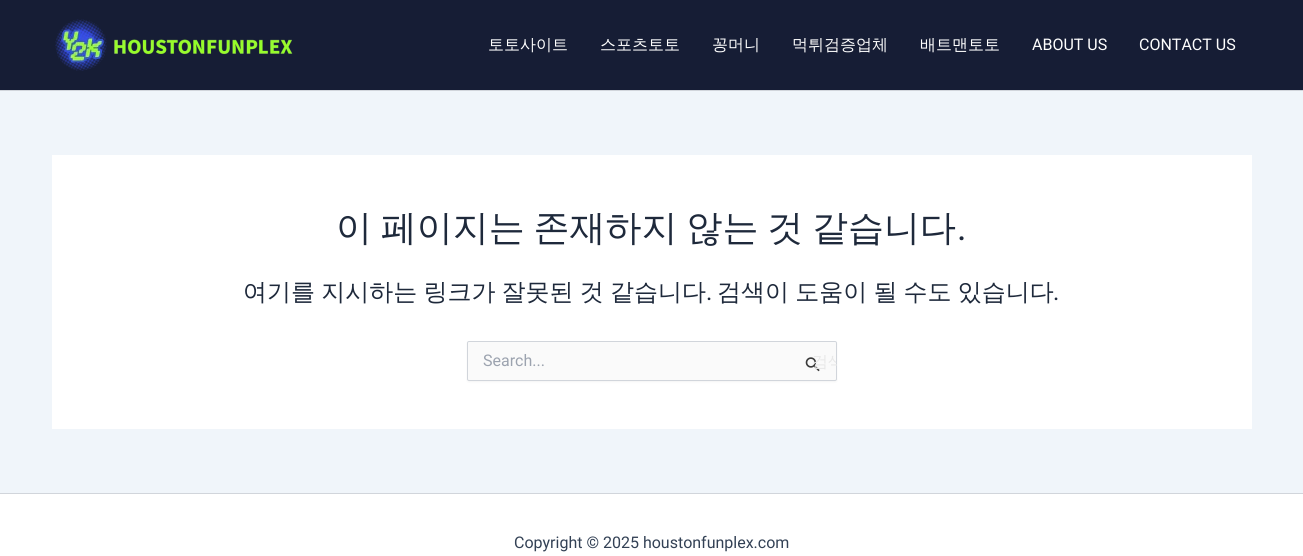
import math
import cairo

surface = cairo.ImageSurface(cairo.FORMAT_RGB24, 1303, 556)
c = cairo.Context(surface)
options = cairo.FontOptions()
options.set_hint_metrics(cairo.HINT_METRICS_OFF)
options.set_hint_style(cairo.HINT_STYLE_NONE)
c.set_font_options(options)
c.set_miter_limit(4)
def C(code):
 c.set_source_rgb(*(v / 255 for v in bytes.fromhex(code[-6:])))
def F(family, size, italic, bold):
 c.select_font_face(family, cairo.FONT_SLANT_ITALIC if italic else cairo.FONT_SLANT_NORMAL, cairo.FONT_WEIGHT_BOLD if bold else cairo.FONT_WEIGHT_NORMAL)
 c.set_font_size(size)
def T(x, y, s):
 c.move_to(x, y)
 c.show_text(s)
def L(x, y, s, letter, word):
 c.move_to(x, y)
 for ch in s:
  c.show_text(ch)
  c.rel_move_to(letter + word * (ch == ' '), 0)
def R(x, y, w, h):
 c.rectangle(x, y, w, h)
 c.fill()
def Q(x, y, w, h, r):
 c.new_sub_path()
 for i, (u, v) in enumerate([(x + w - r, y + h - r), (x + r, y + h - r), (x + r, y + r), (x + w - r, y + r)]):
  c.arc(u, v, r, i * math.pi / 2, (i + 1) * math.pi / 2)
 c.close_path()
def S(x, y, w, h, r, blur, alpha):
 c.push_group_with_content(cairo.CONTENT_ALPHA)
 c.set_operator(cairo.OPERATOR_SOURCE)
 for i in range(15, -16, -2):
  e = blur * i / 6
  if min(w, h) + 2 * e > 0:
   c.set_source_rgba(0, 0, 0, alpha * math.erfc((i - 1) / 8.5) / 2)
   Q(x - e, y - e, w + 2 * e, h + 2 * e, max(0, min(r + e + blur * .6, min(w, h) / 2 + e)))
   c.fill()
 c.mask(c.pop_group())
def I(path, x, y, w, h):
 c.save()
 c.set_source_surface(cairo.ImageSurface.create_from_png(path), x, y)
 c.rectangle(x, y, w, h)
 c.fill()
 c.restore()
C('f0f5fa')
c.paint()
C('161d35')
R(0,0,1303,90)
C('d1d5db')
R(0,90,1303,1)
I('1.png',55,19,238,52)
F('WenQuanYi Zen Hei Medium',16,0,0)
C('fefefe')
T(488,50,'토토사이트')
T(600,50,'스포츠토토')
T(712,50,'꽁머니')
T(792,50,'먹튀검증업체')
T(920,50,'배트맨토토')
F('Roboto',16,0,0)
T(1032,50,'ABOUT US')
T(1139,50,'CONTACT US')
C('ffffff')
R(52,155,1200,274)
F('WenQuanYi Zen Hei Medium',36,0,0)
C('1e293b')
L(336,240,'이 페이지는 존재하지 않는 것 같습니다',0,-2)
F('Roboto',36,0,0)
T(957,240,'.')
F('WenQuanYi Zen Hei Medium',24,0,0)
L(243,300,'여기를 지시하는 링크가 잘못된 것 같습니다',0,-1)
F('Roboto',24,0,0)
T(706,300,'.')
F('WenQuanYi Zen Hei Medium',24,0,0)
L(717,300,'검색이 도움이 될 수도 있습니다',0,-1)
F('Roboto',24,0,0)
T(1053,300,'.')
C('000000')
S(467,342,370,40,2,1,.05)
C('fafafa')
Q(467.5,341.5,369,39,1.5)
c.fill_preserve()
C('d1d5db')
c.set_line_width(1)
c.stroke()
F('Roboto',16,0,0)
C('9ca3af')
T(483,366,'Search...')
I('2.png',805,357,15,15)
c.save()
Q(792,341,45,42,2)
c.clip()
F('WenQuanYi Zen Hei Medium',16,0,0)
C('e8e8e8')
T(812,367,'검색')
c.restore()
C('ffffff')
R(0,494,1303,62)
C('d1d5db')
R(0,493,1303,1)
C('334155')
T(514,548,'Copyright © 2025 houstonfunplex.com')
surface.write_to_png('o.png')
